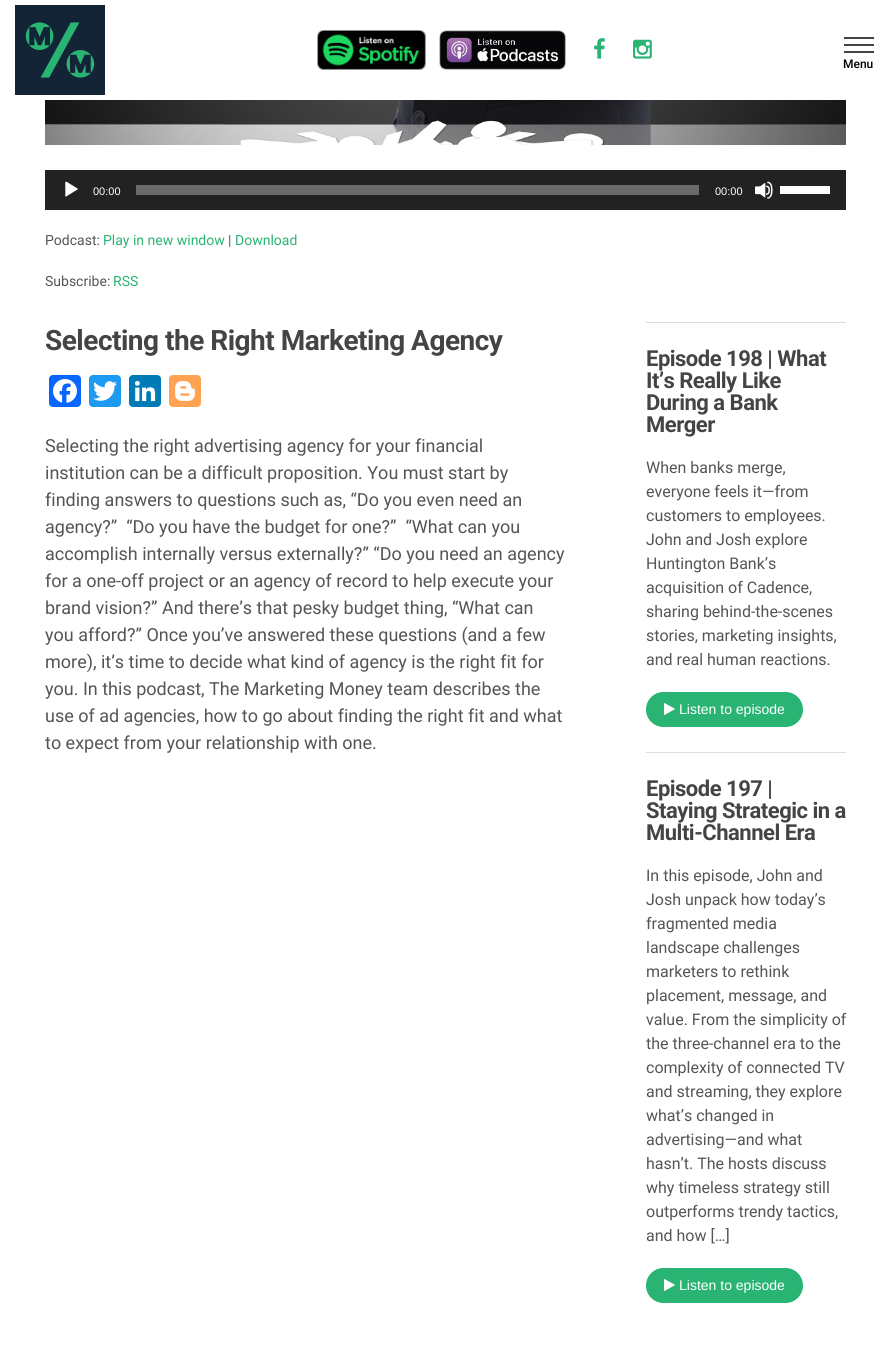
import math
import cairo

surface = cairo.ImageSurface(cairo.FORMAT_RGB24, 891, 1359)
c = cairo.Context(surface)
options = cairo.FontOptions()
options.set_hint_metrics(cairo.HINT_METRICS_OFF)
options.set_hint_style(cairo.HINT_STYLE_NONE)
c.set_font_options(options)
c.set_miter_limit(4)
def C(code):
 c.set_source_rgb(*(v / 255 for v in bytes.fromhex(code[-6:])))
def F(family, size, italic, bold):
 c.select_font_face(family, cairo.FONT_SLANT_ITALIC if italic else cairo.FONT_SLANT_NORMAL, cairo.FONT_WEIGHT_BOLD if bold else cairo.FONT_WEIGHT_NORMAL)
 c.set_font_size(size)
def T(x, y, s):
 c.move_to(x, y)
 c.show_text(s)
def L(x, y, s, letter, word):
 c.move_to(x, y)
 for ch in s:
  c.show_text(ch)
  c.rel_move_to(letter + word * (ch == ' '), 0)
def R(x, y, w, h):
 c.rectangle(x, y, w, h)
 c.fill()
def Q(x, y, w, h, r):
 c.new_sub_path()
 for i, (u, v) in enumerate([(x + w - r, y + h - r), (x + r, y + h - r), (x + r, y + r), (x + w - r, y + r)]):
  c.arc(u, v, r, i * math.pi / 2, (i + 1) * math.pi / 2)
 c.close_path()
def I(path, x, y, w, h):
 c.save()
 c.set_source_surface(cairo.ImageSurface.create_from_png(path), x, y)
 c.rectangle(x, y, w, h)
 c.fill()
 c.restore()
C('ffffff')
c.paint()
I('1.png',15,5,90,90)
I('2.png',317,30,109,40)
I('3.png',439,30,127,40)
I('4.png',594,38,11,21)
I('5.png',633,39,19,20)
C('444444')
R(844,37,30,2)
R(844,44,30,2)
R(844,51,30,2)
F('Roboto Medium',12,0,0)
C('000000')
T(843,68,'Menu')
I('6.png',45,100,801,45)
C('222222')
R(45,170,801,40)
I('7.png',65,181,13,16)
F('Liberation Sans',11,0,0)
C('ffffff')
T(93,195,'00:00')
C('6b6b6b')
R(136,185,563,10)
C('ffffff')
T(715,195,'00:00')
I('8.png',755,181,18,18)
R(780,186,50,8)
F('Roboto',14,0,0)
C('555555')
T(45,245,'Podcast:')
C('29b473')
T(103,245,'Play in new window')
C('555555')
T(228,245,'|')
C('29b473')
T(235,245,'Download')
C('555555')
T(45,286,'Subscribe:')
C('29b473')
T(113,286,'RSS')
F('Roboto',28,0,1)
C('444444')
L(45,350,'Selecting the Right Marketing Agency',-.5,0)
C('0866ff')
Q(49,375,32,32,4)
c.fill()
I('9.png',53,379,24,24)
C('1d9bf0')
Q(89,375,32,32,4)
c.fill()
I('10.png',93,381,24,20)
C('007bb5')
Q(129,375,32,32,4)
c.fill()
I('11.png',134,380,22,22)
C('fda352')
Q(169,375,32,32,4)
c.fill()
I('12.png',175,381,20,20)
F('Roboto',18,0,0)
C('555555')
T(45,452,'Selecting the right advertising agency for your financial')
T(45,479,'institution can be a difficult proposition. You must start by')
T(45,506,'finding answers to questions such as, “Do you even need an')
T(45,533,'agency?”  “Do you have the budget for one?”  “What can you')
T(45,560,'accomplish internally versus externally?” “Do you need an agency')
T(45,587,'for a one-off project or an agency of record to help execute your')
T(45,614,'brand vision?” And there’s that pesky budget thing, “What can')
T(45,641,'you afford?” Once you’ve answered these questions (and a few')
T(45,668,'more), it’s time to decide what kind of agency is the right fit for')
T(45,695,'you. In this podcast, The Marketing Money team describes the')
T(45,722,'use of ad agencies, how to go about finding the right fit and what')
T(45,749,'to expect from your relationship with one.')
C('dddddd')
R(646,322,200,1)
F('Roboto',22,0,1)
C('444444')
L(646,366,'Episode 198 | What',-.5,0)
L(646,388,'It’s Really Like',-.5,0)
L(646,410,'During a Bank',-.5,0)
L(646,432,'Merger',-.5,0)
F('Roboto',16,0,0)
C('555555')
T(646,473,'When banks merge,')
T(646,497,'everyone feels it—from')
T(646,521,'customers to employees.')
T(646,545,'John and Josh explore')
T(646,569,'Huntington Bank’s')
T(646,593,'acquisition of Cadence,')
T(646,617,'sharing behind-the-scenes')
T(646,641,'stories, marketing insights,')
T(646,665,'and real human reactions.')
C('29b473')
Q(646,692,157,35,17.5)
c.fill()
I('13.png',664,703,11,12)
F('Liberation Sans',14,0,0)
C('ffffff')
T(679,714,'Listen to episode')
C('dddddd')
R(646,752,200,1)
F('Roboto',22,0,1)
C('444444')
L(646,796,'Episode 197 |',-.5,0)
L(646,818,'Staying Strategic in a',-.5,0)
L(646,840,'Multi-Channel Era',-.5,0)
F('Roboto',16,0,0)
C('555555')
T(646,881,'In this episode, John and')
T(646,905,'Josh unpack how today’s')
T(646,929,'fragmented media')
T(646,953,'landscape challenges')
T(646,977,'marketers to rethink')
T(646,1001,'placement, message, and')
T(646,1025,'value. From the simplicity of')
T(646,1049,'the three-channel era to the')
T(646,1073,'complexity of connected TV')
T(646,1097,'and streaming, they explore')
T(646,1121,'what’s changed in')
T(646,1145,'advertising—and what')
T(646,1169,'hasn’t. The hosts discuss')
T(646,1193,'why timeless strategy still')
T(646,1217,'outperforms trendy tactics,')
T(646,1241,'and how […]')
C('29b473')
Q(646,1268,157,35,17.5)
c.fill()
I('13.png',664,1279,11,12)
F('Liberation Sans',14,0,0)
C('ffffff')
T(679,1290,'Listen to episode')
surface.write_to_png('o.png')
